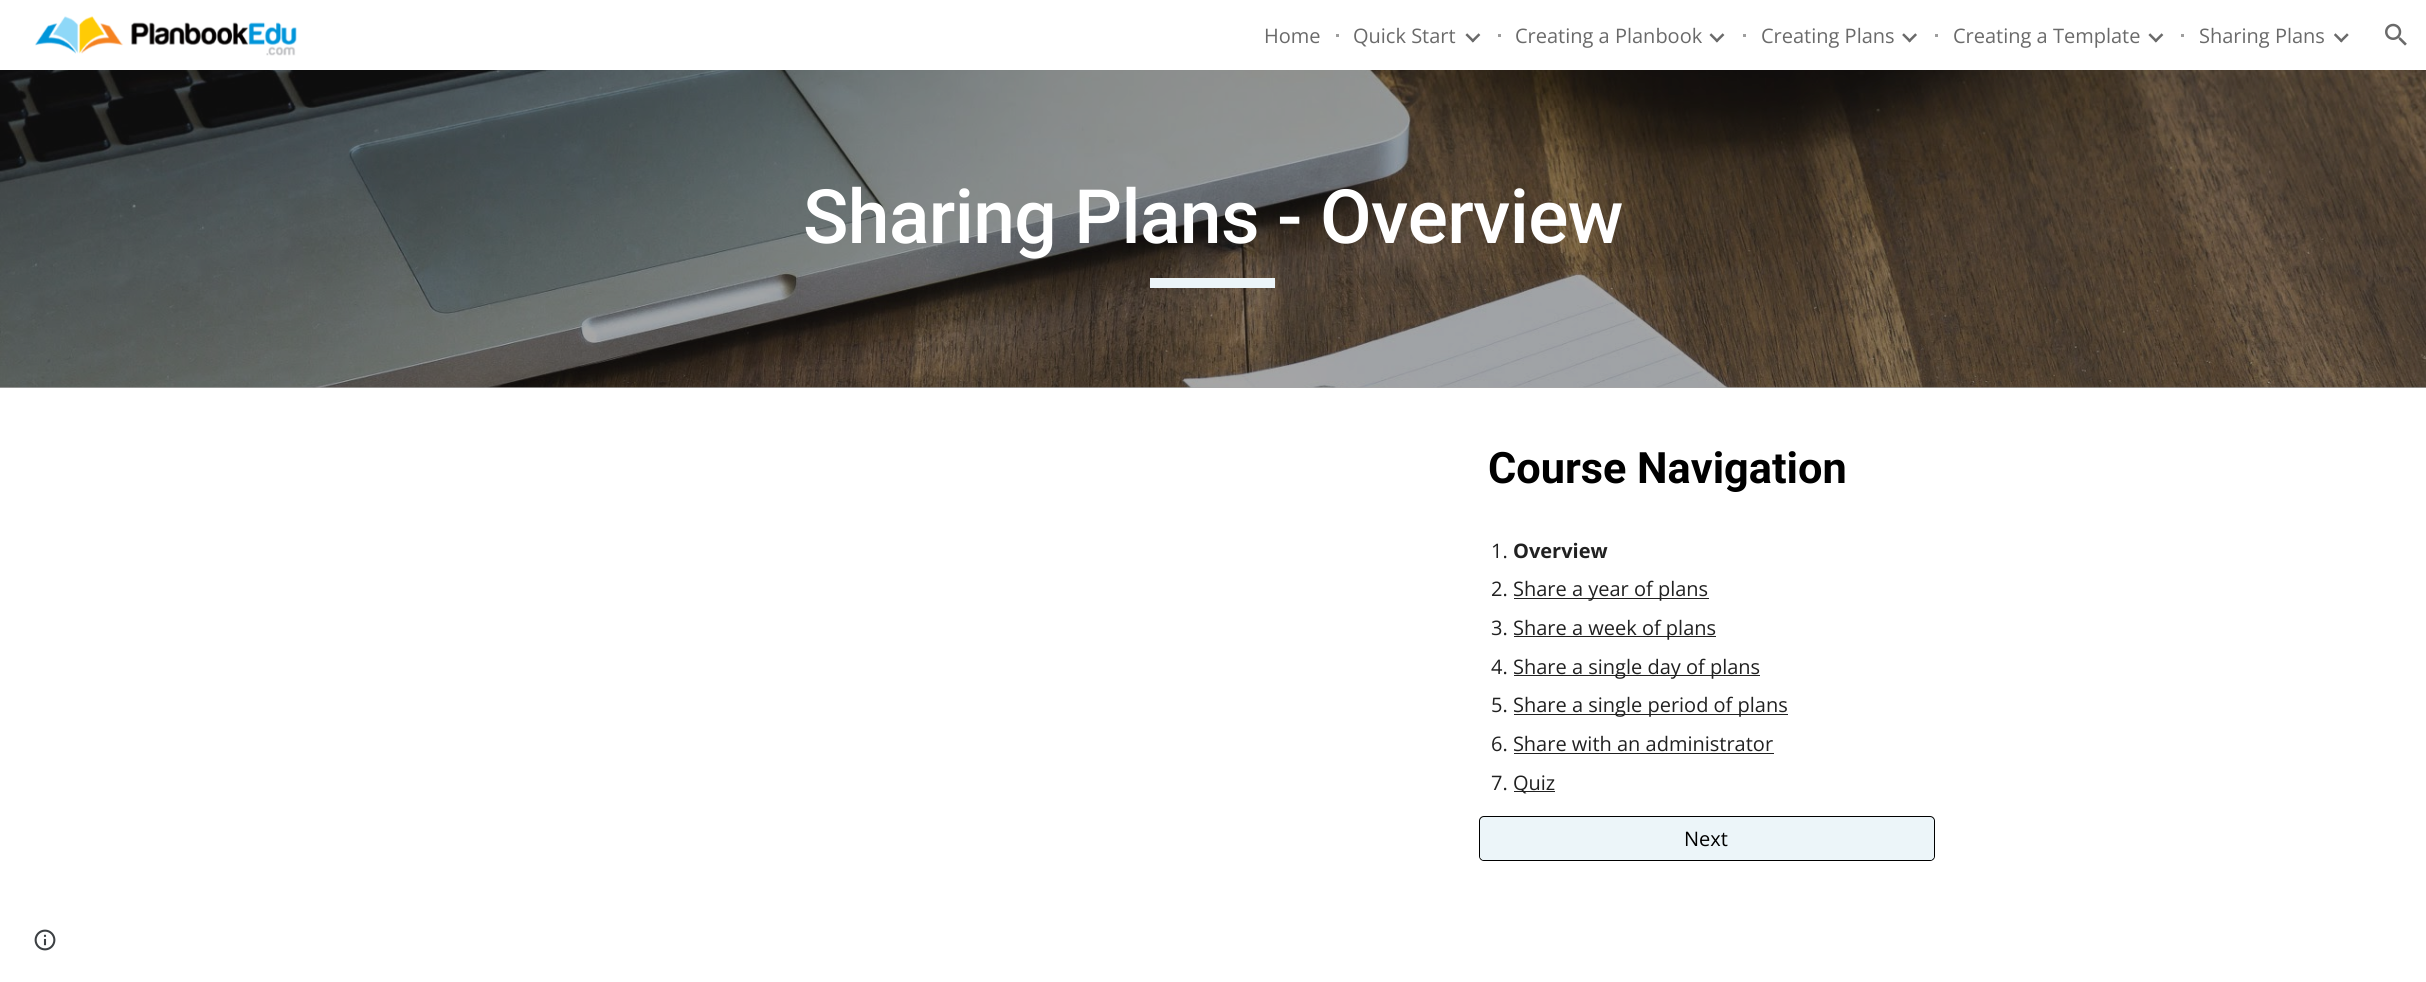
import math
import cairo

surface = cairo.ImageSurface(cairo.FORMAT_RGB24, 2426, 982)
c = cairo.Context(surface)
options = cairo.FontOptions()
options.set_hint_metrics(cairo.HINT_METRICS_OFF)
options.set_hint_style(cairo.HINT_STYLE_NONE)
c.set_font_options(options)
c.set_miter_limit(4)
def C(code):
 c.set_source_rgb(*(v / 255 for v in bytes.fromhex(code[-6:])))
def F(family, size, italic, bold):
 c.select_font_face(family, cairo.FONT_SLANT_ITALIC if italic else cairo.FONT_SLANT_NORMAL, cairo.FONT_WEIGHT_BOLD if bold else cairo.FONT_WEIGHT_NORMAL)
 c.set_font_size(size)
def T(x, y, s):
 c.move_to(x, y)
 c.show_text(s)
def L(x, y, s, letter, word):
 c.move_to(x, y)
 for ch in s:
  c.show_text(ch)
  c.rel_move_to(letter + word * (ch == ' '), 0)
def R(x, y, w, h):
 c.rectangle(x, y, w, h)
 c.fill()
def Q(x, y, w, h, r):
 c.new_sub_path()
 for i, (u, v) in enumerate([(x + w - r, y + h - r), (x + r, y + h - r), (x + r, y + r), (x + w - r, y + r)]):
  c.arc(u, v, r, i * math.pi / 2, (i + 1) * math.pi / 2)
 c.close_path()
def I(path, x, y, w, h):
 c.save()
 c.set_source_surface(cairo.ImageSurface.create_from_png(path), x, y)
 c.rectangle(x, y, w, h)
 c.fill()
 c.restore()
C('ffffff')
c.paint()
C('a6a6a6')
R(0,387,2426,1)
I('1.png',35,16,262,40)
F('Open Sans',20,0,0)
C('6a6a6a')
T(1264,43,'Home')
C('9e9e9e')
R(1336,34,3,3)
C('6a6a6a')
T(1353,43,'Quick Start')
I('2.png',1465,33,16,10)
C('9e9e9e')
R(1498,34,3,3)
C('6a6a6a')
T(1515,43,'Creating a Planbook')
I('3.png',1709,33,16,10)
C('9e9e9e')
R(1743,34,3,3)
C('6a6a6a')
T(1761,43,'Creating Plans')
I('4.png',1902,33,15,10)
C('9e9e9e')
R(1935,34,3,3)
C('6a6a6a')
T(1953,43,'Creating a Template')
I('5.png',2148,33,16,10)
C('9e9e9e')
R(2181,34,3,3)
C('6a6a6a')
T(2199,43,'Sharing Plans')
I('6.png',2334,33,15,10)
I('7.png',2385,23,22,23)
I('8.png',0,70,2426,318)
F('Roboto Medium',75,0,0)
C('ffffff')
L(803,243,'Sharing Plans - Overview',-.6,0)
C('ecf5f9')
R(1150,278,125,10)
F('Roboto',43.25,0,1)
C('000000')
T(1488,483,'Course Navigation')
F('Open Sans',20,0,0)
C('212121')
T(1491,558,'1.')
F('Open Sans',20,0,1)
T(1513,558,'Overview')
F('Open Sans',20,0,0)
T(1491,596,'2.')
R(1514,598,195,1)
T(1513,596,'Share a year of plans')
T(1491,635,'3.')
R(1514,636,202,1)
T(1513,635,'Share a week of plans')
T(1491,674,'4.')
R(1514,675,246,1)
T(1513,674,'Share a single day of plans')
T(1491,712,'5.')
R(1514,714,274,1)
T(1513,712,'Share a single period of plans')
T(1491,751,'6. Share with an administrator')
R(1514,753,260,1)
T(1491,790,'7.')
R(1514,791,41,1)
T(1513,790,'Quiz')
C('ecf5f9')
Q(1479.5,816.5,455,44,4.5)
c.fill_preserve()
C('000000')
c.set_line_width(1)
c.stroke()
C('ecf5f9')
Q(1480,818,454,42,4)
c.fill()
C('000000')
T(1684,846,'Next')
I('9.png',34,929,22,22)
surface.write_to_png('o.png')
